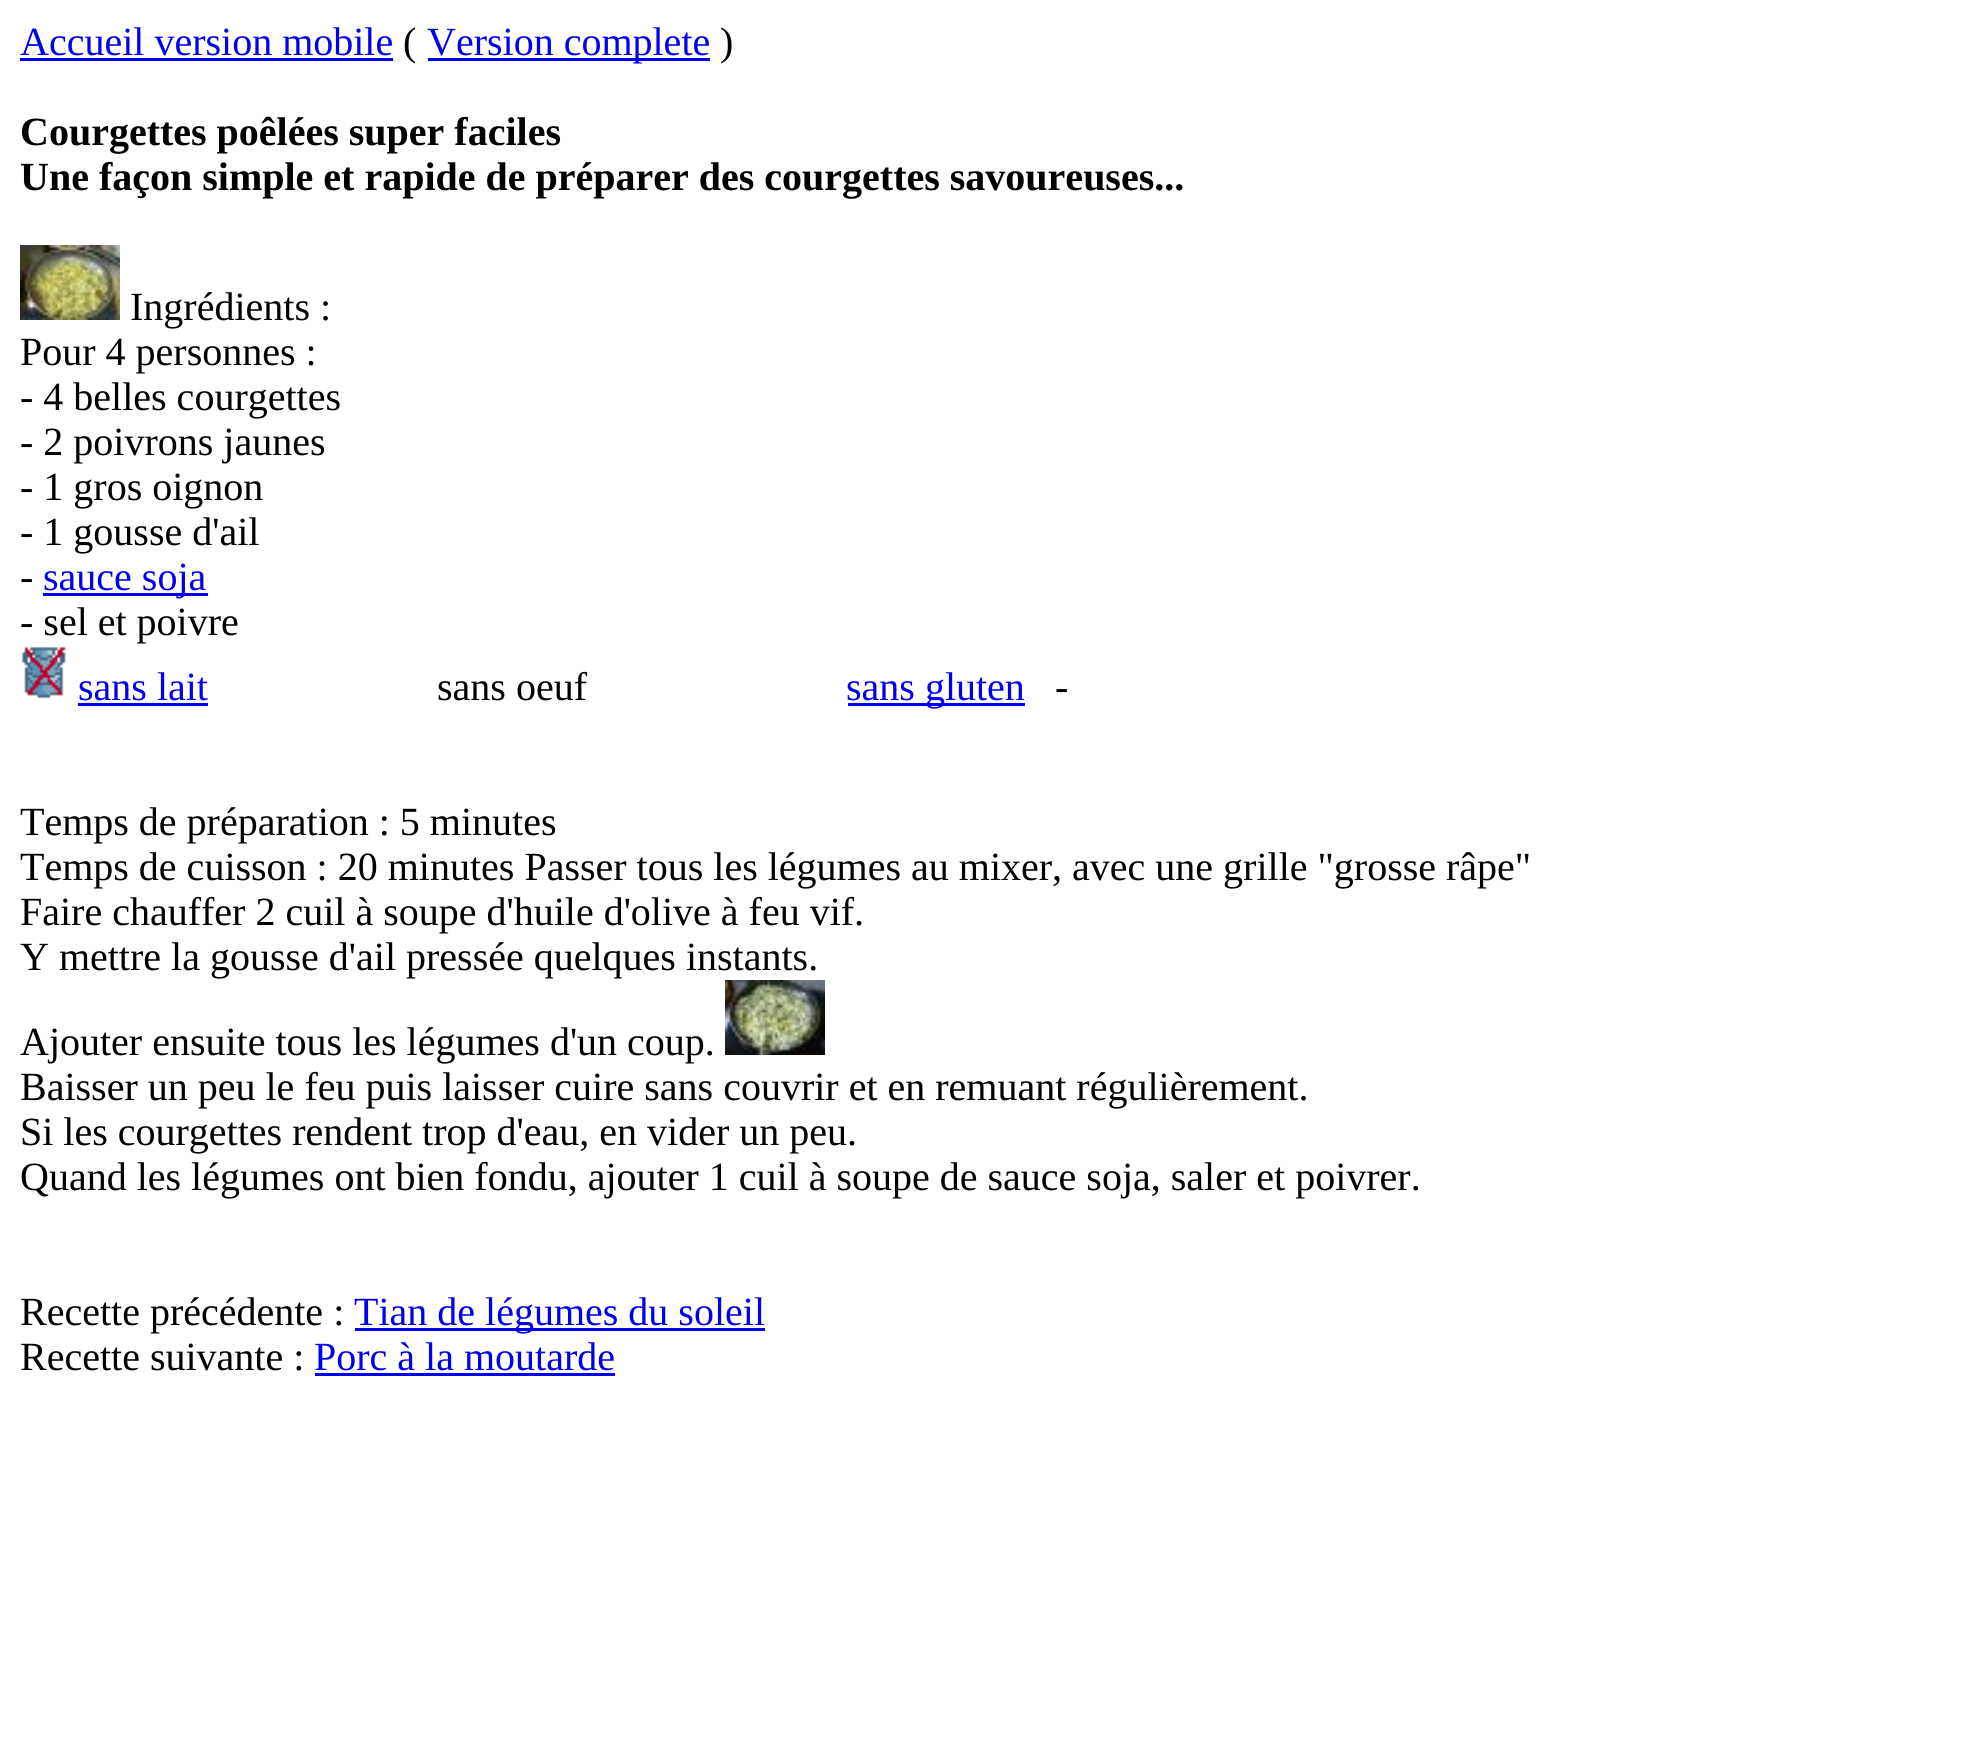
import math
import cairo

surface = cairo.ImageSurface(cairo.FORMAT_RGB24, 1974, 1737)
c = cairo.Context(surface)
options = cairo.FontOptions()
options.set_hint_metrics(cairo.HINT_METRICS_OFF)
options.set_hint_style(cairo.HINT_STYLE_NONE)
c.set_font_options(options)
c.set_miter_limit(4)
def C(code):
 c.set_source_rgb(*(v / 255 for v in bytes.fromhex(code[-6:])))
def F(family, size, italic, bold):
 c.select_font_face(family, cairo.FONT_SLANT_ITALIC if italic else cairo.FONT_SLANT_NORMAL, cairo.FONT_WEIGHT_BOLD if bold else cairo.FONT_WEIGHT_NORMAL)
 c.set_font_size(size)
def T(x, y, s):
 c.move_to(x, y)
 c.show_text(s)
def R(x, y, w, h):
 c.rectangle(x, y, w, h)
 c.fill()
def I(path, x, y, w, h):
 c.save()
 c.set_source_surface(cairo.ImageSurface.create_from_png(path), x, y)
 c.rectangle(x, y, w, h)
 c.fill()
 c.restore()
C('ffffff')
c.paint()
F('Liberation Serif',40,0,0)
C('0000ee')
T(20,55,'Accueil version mobile')
R(20,58,373,3)
C('000000')
T(403,55,'(')
C('0000ee')
R(428,58,282,3)
T(427,55,'Version complete')
C('000000')
T(720,55,')')
F('Liberation Serif',40,0,1)
T(20,145,'Courgettes poêlées super faciles')
T(20,190,'Une façon simple et rapide de préparer des courgettes savoureuses...')
I('1.png',20,245,100,75)
F('Liberation Serif',40,0,0)
T(130,320,'Ingrédients :')
T(20,365,'Pour 4 personnes :')
T(20,410,'- 4 belles courgettes')
T(20,455,'- 2 poivrons jaunes')
T(20,500,'- 1 gros oignon')
T(20,545,'- 1 gousse d\'ail')
T(20,590,'-')
C('0000ee')
R(43,593,165,3)
T(43,590,'sauce soja')
C('000000')
T(20,635,'- sel et poivre')
I('2.png',21,646,45,53)
C('0000ee')
T(78,700,'sans lait')
R(78,703,130,3)
C('000000')
T(437,700,'sans oeuf')
C('0000ee')
R(848,703,177,3)
T(846,700,'sans gluten')
C('000000')
T(1055,700,'-')
T(20,835,'Temps de préparation : 5 minutes')
T(20,880,'Temps de cuisson : 20 minutes Passer tous les légumes au mixer, avec une grille "grosse râpe"')
T(20,925,'Faire chauffer 2 cuil à soupe d\'huile d\'olive à feu vif.')
T(20,970,'Y mettre la gousse d\'ail pressée quelques instants.')
T(20,1055,'Ajouter ensuite tous les légumes d\'un coup.')
I('3.png',725,980,100,75)
T(20,1100,'Baisser un peu le feu puis laisser cuire sans couvrir et en remuant régulièrement.')
T(20,1145,'Si les courgettes rendent trop d\'eau, en vider un peu.')
T(20,1190,'Quand les légumes ont bien fondu, ajouter 1 cuil à soupe de sauce soja, saler et poivrer.')
T(20,1325,'Recette précédente :')
C('0000ee')
R(355,1328,410,3)
T(354,1325,'Tian de légumes du soleil')
C('000000')
T(20,1370,'Recette suivante :')
C('0000ee')
T(314,1370,'Porc à la moutarde')
R(315,1373,300,3)
surface.write_to_png('o.png')
